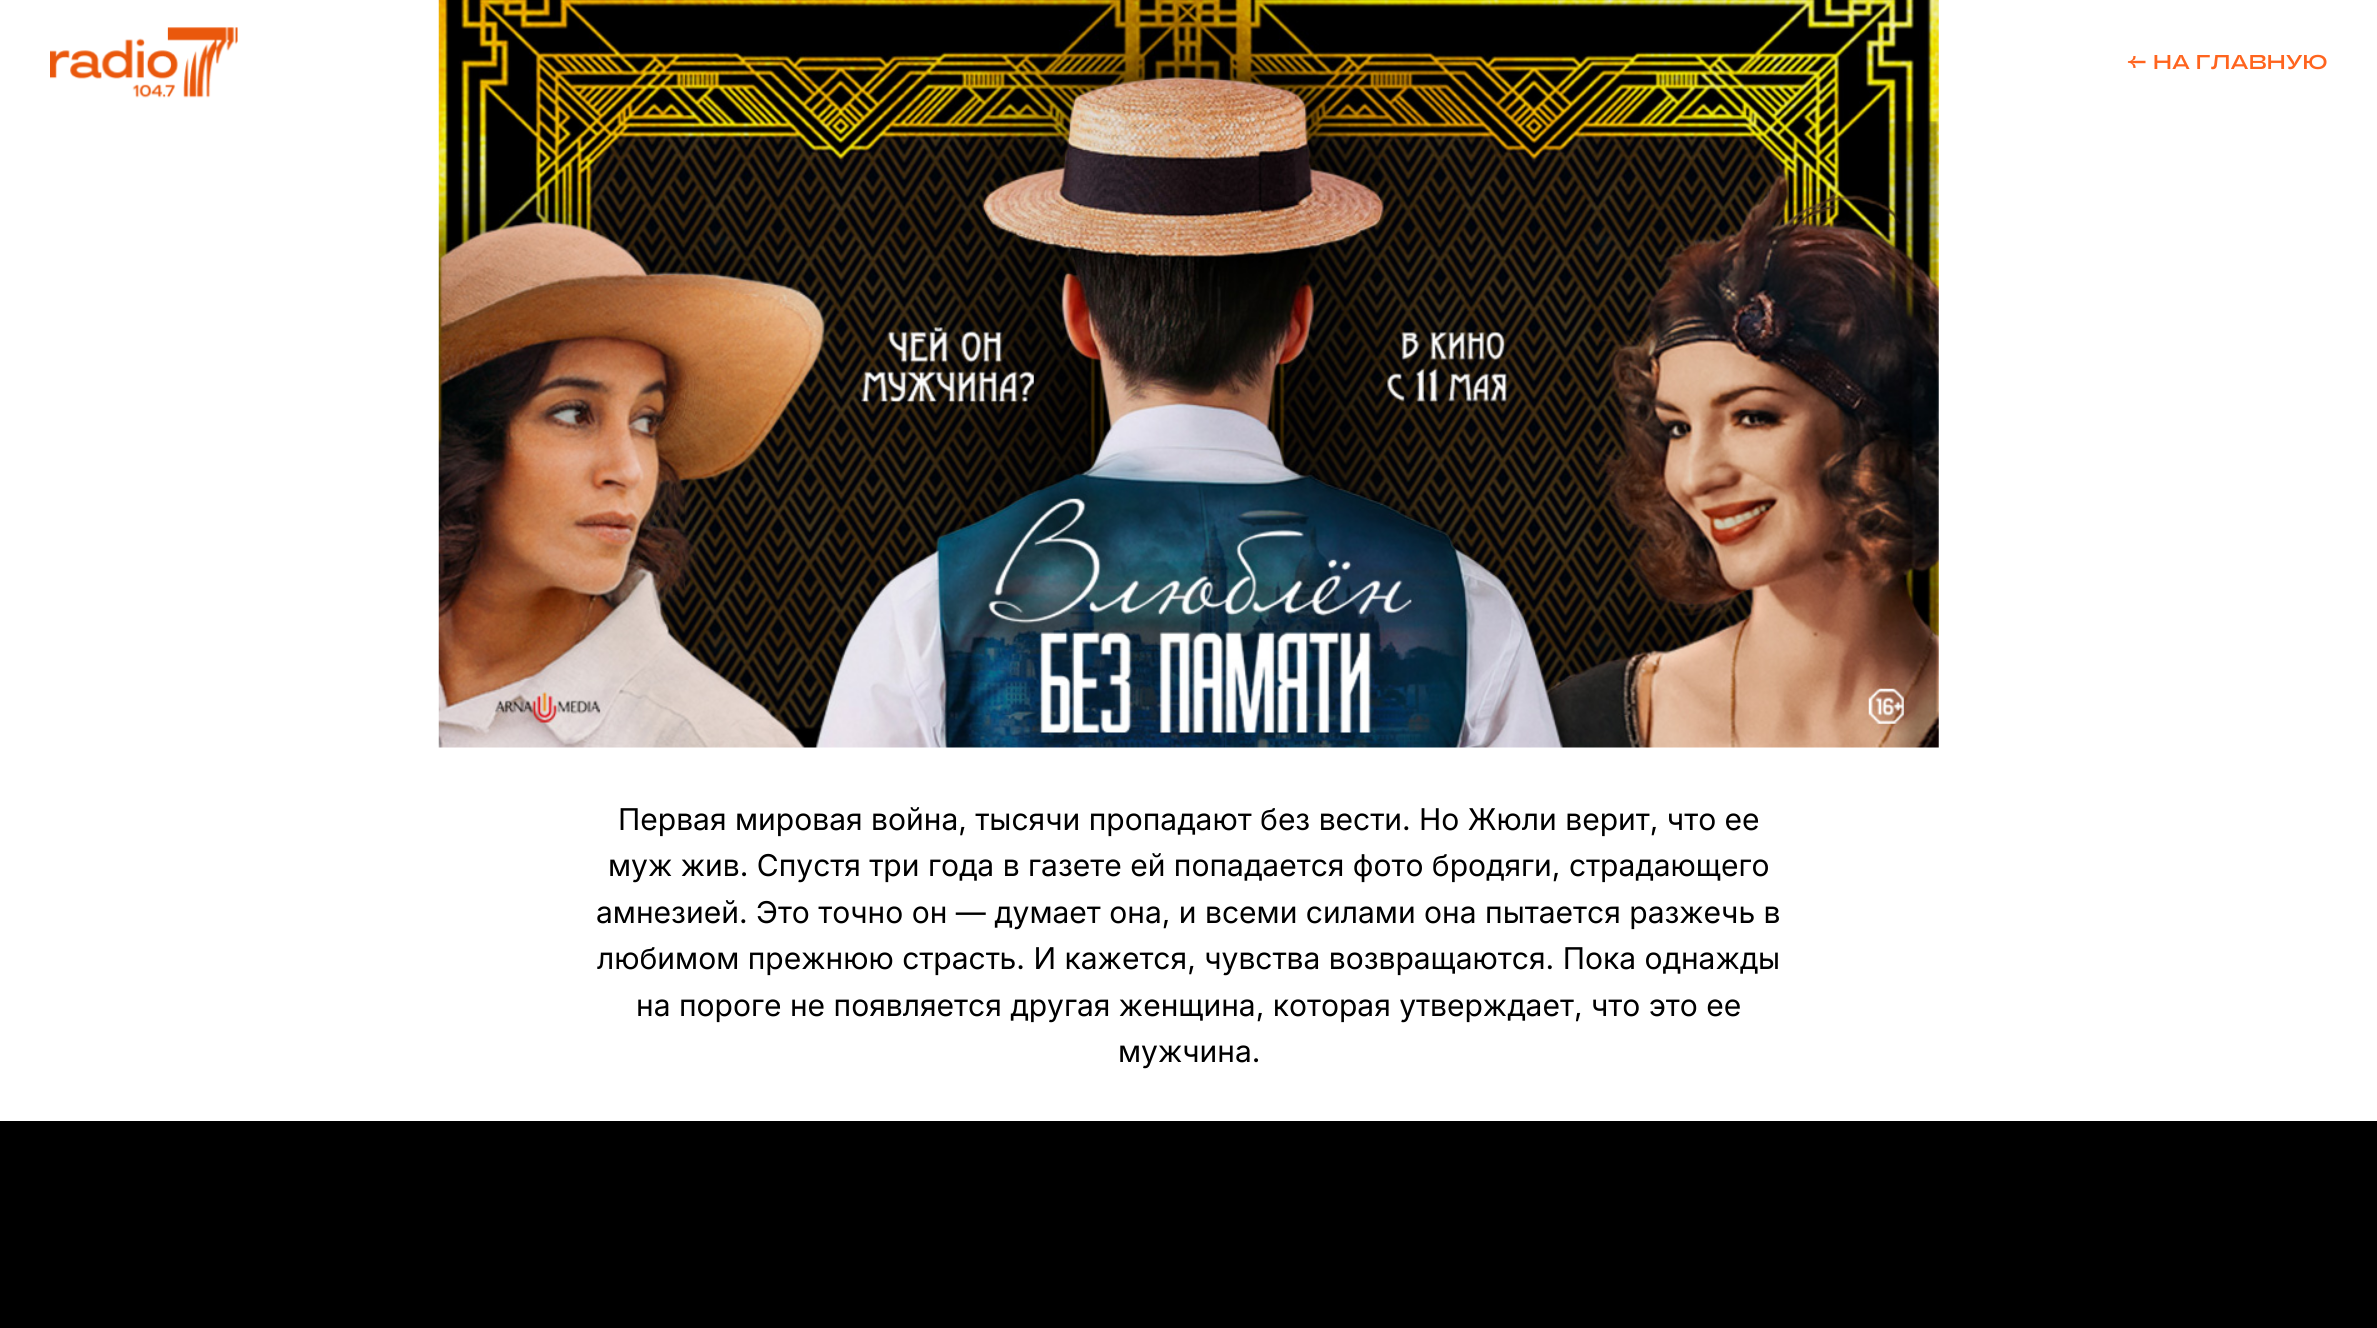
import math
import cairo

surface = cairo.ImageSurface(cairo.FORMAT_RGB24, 2377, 1328)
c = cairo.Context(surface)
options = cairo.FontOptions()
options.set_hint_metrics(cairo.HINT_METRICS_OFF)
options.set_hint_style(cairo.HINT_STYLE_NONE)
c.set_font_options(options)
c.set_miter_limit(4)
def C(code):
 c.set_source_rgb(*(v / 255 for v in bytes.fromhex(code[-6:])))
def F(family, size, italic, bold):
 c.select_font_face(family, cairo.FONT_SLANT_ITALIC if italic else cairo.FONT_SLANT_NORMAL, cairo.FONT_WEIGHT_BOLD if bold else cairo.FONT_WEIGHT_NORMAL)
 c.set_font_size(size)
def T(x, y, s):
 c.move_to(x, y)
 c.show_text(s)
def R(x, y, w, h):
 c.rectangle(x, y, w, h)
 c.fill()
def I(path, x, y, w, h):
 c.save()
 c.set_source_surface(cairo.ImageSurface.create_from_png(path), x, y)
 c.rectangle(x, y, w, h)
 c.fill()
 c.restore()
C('ffffff')
c.paint()
I('1.png',438,0,1501,748)
I('2.png',50,27,188,71)
F('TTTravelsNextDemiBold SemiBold',20,0,0)
C('ff641e')
T(2126,69,'← НА ГЛАВНУЮ')
F('Inter',30,0,0)
C('000000')
T(618,830,'Первая мировая война, тысячи пропадают без вести. Но Жюли верит, что ее')
T(608,876,'муж жив. Спустя три года в газете ей попадается фото бродяги, страдающего')
T(596,923,'амнезией. Это точно он — думает она, и всеми силами она пытается разжечь в')
T(597,969,'любимом прежнюю страсть. И кажется, чувства возвращаются. Пока однажды')
T(636,1016,'на пороге не появляется другая женщина, которая утверждает, что это ее')
T(1118,1062,'мужчина.')
R(0,1121,2377,207)
surface.write_to_png('o.png')
